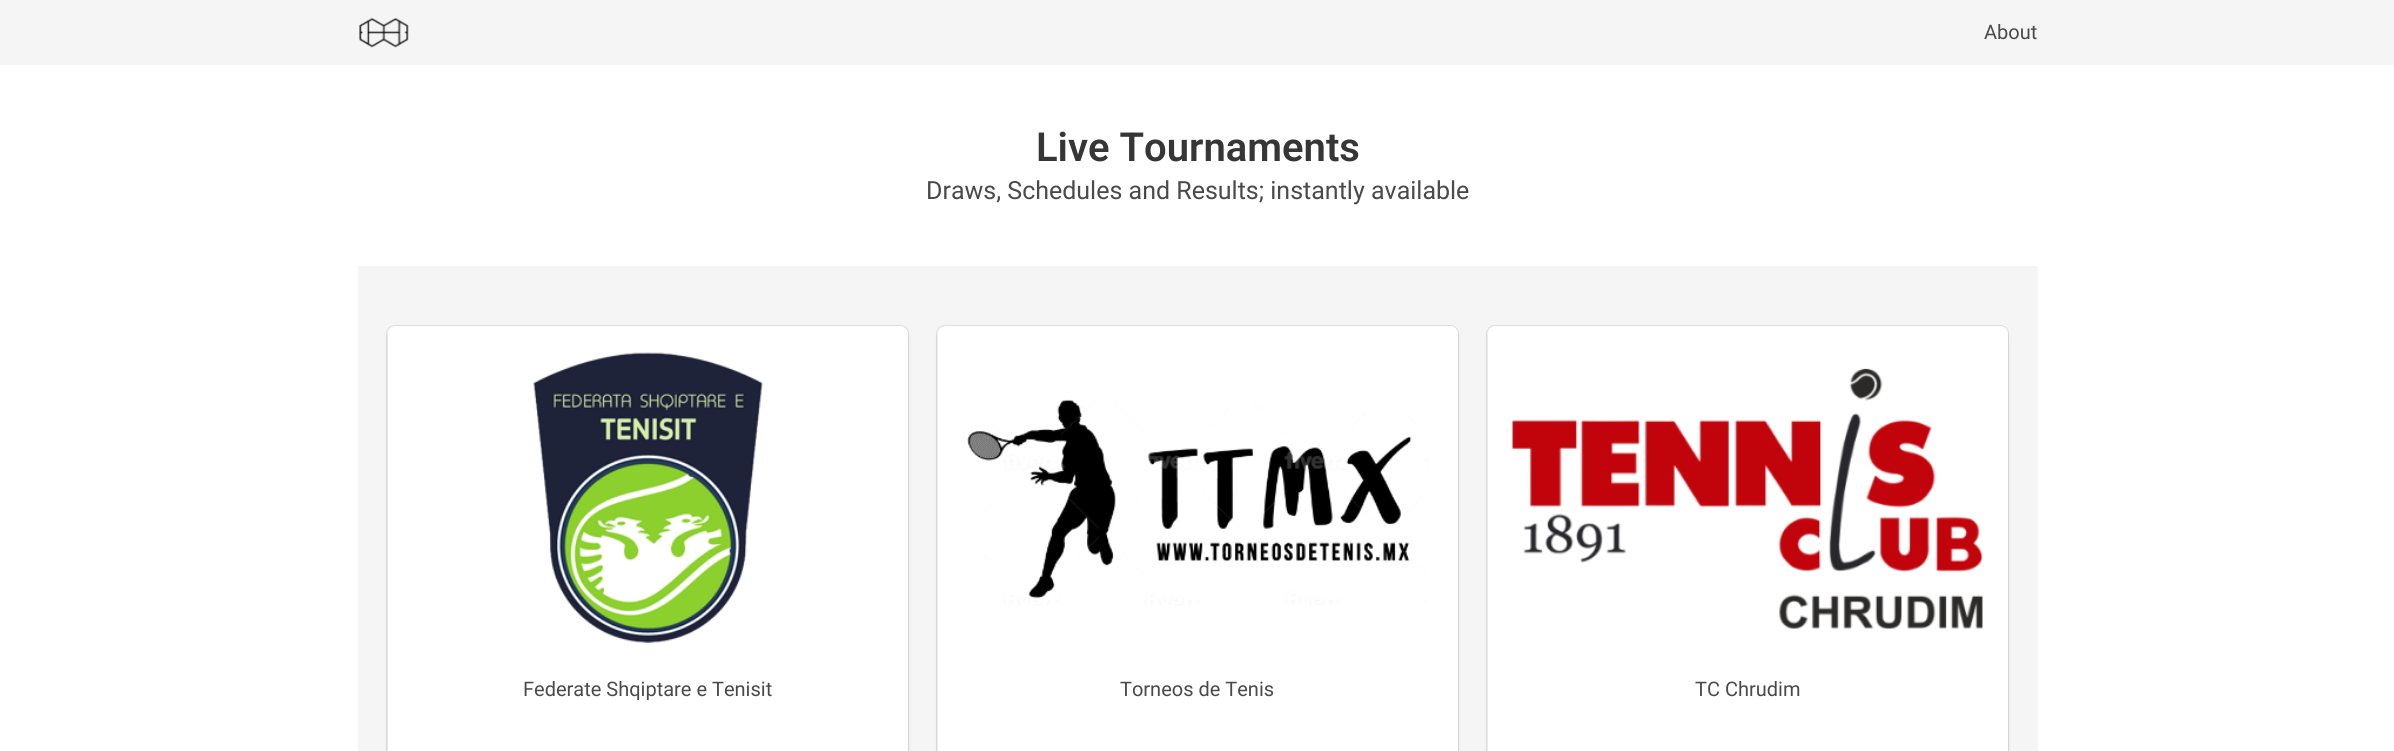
import math
import cairo

surface = cairo.ImageSurface(cairo.FORMAT_RGB24, 2394, 751)
c = cairo.Context(surface)
options = cairo.FontOptions()
options.set_hint_metrics(cairo.HINT_METRICS_OFF)
options.set_hint_style(cairo.HINT_STYLE_NONE)
c.set_font_options(options)
c.set_miter_limit(4)
def C(code):
 c.set_source_rgb(*(v / 255 for v in bytes.fromhex(code[-6:])))
def F(family, size, italic, bold):
 c.select_font_face(family, cairo.FONT_SLANT_ITALIC if italic else cairo.FONT_SLANT_NORMAL, cairo.FONT_WEIGHT_BOLD if bold else cairo.FONT_WEIGHT_NORMAL)
 c.set_font_size(size)
def T(x, y, s):
 c.move_to(x, y)
 c.show_text(s)
def R(x, y, w, h):
 c.rectangle(x, y, w, h)
 c.fill()
def Q(x, y, w, h, r):
 c.new_sub_path()
 for i, (u, v) in enumerate([(x + w - r, y + h - r), (x + r, y + h - r), (x + r, y + r), (x + w - r, y + r)]):
  c.arc(u, v, r, i * math.pi / 2, (i + 1) * math.pi / 2)
 c.close_path()
def S(x, y, w, h, r, blur, alpha):
 c.push_group_with_content(cairo.CONTENT_ALPHA)
 c.set_operator(cairo.OPERATOR_SOURCE)
 for i in range(15, -16, -2):
  e = blur * i / 6
  if min(w, h) + 2 * e > 0:
   c.set_source_rgba(0, 0, 0, alpha * math.erfc((i - 1) / 8.5) / 2)
   Q(x - e, y - e, w + 2 * e, h + 2 * e, max(0, min(r + e + blur * .6, min(w, h) / 2 + e)))
   c.fill()
 c.mask(c.pop_group())
def I(path, x, y, w, h):
 c.save()
 c.set_source_surface(cairo.ImageSurface.create_from_png(path), x, y)
 c.rectangle(x, y, w, h)
 c.fill()
 c.restore()
C('ffffff')
c.paint()
C('f5f5f5')
R(0,0,2394,65)
I('1.png',359,17,50,31)
F('Roboto',20,0,0)
C('4a4a4a')
T(1984,39,'About')
F('Roboto SemiBold',40,0,0)
C('363636')
T(1036,161,'Live Tournaments')
F('Roboto',25,0,0)
C('4a4a4a')
T(926,199,'Draws, Schedules and Results; instantly available')
C('f5f5f5')
R(358,266,1680,485)
Q(386.5,325.5,522,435,8.5)
C('dedede')
c.set_line_width(1)
c.stroke()
C('0a0a0a')
S(388,329,520,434,8,2,.1)
C('ffffff')
Q(388,326,520,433,8)
c.fill()
I('2.png',533,352,230,291)
F('Roboto',20,0,0)
C('4a4a4a')
T(523,696,'Federate Shqiptare e Tenisit')
Q(936.5,325.5,522,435,8.5)
C('dedede')
c.stroke()
C('0a0a0a')
S(938,329,520,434,8,2,.1)
C('ffffff')
Q(938,326,520,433,8)
c.fill()
I('3.png',967,399,461,206)
C('4a4a4a')
T(1120,696,'Torneos de Tenis')
Q(1486.5,325.5,522,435,8.5)
C('dedede')
c.stroke()
C('0a0a0a')
S(1488,329,520,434,8,2,.1)
C('ffffff')
Q(1488,326,520,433,8)
c.fill()
I('4.png',1512,368,471,261)
C('4a4a4a')
T(1695,696,'TC Chrudim')
surface.write_to_png('o.png')
